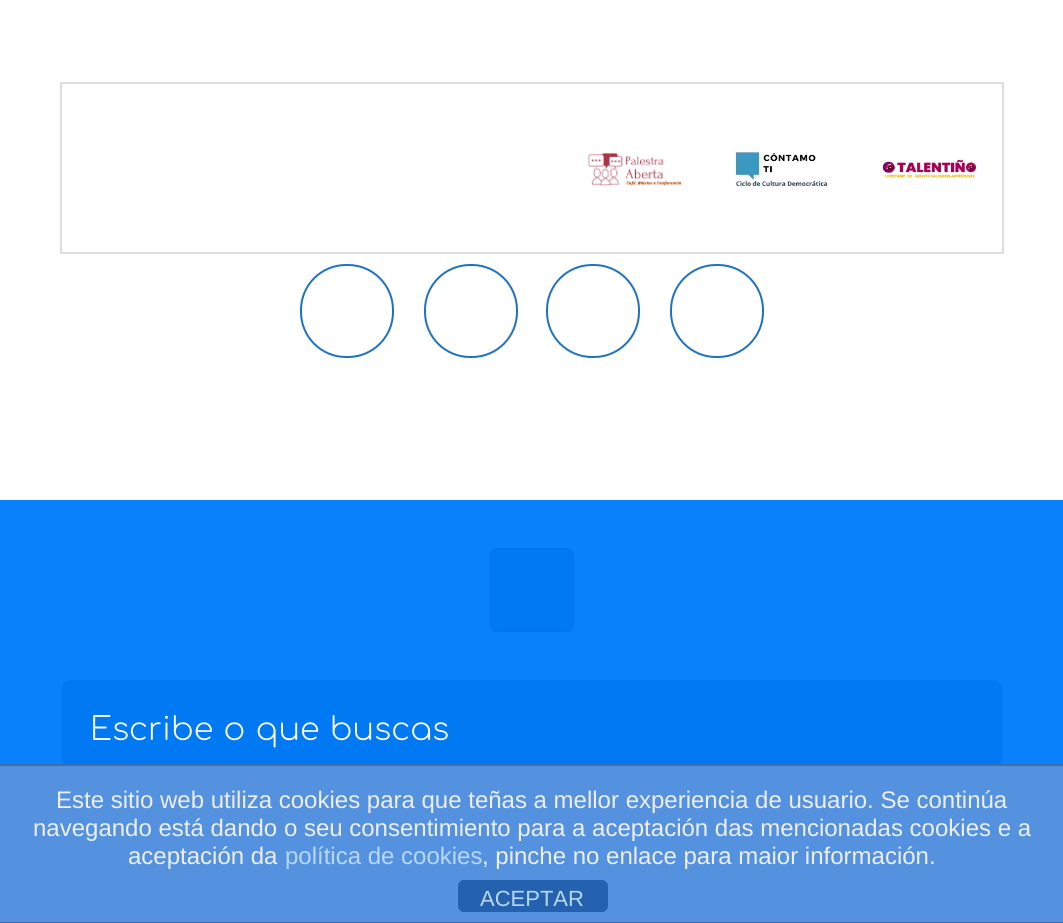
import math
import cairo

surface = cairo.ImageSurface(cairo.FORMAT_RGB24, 1063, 923)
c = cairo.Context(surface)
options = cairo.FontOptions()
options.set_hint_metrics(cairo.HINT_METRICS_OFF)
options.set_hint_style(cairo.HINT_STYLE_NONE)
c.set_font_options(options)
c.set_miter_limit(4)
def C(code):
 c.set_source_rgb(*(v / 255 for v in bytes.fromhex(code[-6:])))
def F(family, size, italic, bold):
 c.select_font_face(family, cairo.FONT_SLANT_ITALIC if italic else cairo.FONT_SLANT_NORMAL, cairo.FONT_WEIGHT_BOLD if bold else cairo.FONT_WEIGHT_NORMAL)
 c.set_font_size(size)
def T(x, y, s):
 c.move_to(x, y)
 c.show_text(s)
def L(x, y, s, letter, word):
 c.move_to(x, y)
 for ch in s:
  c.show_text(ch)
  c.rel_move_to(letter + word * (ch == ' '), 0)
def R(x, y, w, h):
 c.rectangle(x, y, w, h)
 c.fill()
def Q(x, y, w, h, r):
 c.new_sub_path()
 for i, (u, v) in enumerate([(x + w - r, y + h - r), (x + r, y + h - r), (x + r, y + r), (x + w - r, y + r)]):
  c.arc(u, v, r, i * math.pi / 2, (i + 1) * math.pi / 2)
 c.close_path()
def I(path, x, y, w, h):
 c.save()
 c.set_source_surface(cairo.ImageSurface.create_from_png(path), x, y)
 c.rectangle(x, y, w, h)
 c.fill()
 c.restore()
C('ffffff')
c.paint()
C('e0dddd')
R(60,82,944,2)
R(1002,82,2,172)
R(60,252,944,2)
R(60,82,2,172)
I('1.png',588,152,94,35)
I('2.png',733,150,95,38)
I('3.png',882,159,94,19)
Q(301,265,92,92,45)
C('1e73be')
c.stroke()
Q(425,265,92,92,45)
c.stroke()
Q(547,265,92,92,45)
c.stroke()
Q(671,265,92,92,45)
c.stroke()
C('0981fa')
R(0,500,1063,264)
C('0179f2')
Q(491,549,82,82,7)
c.fill_preserve()
C('0075ee')
c.stroke()
C('0179f2')
Q(62,680,940,100,8)
c.fill()
F('Comfortaa Light',32,0,0)
C('ffffff')
L(90,740,'Escribe o que buscas',0,1)
C('5492e0')
R(0,766,1063,156)
C('3f6da7')
R(0,764,1063,2)
R(0,922,1063,1)
F('Liberation Sans',24,0,0)
C('eeeeee')
T(56,808,'Este sitio web utiliza cookies para que teñas a mellor experiencia de usuario. Se continúa')
T(33,836,'navegando está dando o seu consentimiento para a aceptación das mencionadas cookies e a')
T(128,864,'aceptación da')
C('b7d7ff')
T(285,864,'política de cookies')
C('eeeeee')
T(482,864,', pinche no enlace para maior información.')
C('2462b0')
Q(458,880,150,32,6)
c.fill()
F('Liberation Sans',22,0,0)
C('b7d7ff')
T(480,906,'ACEPTAR')
surface.write_to_png('o.png')
